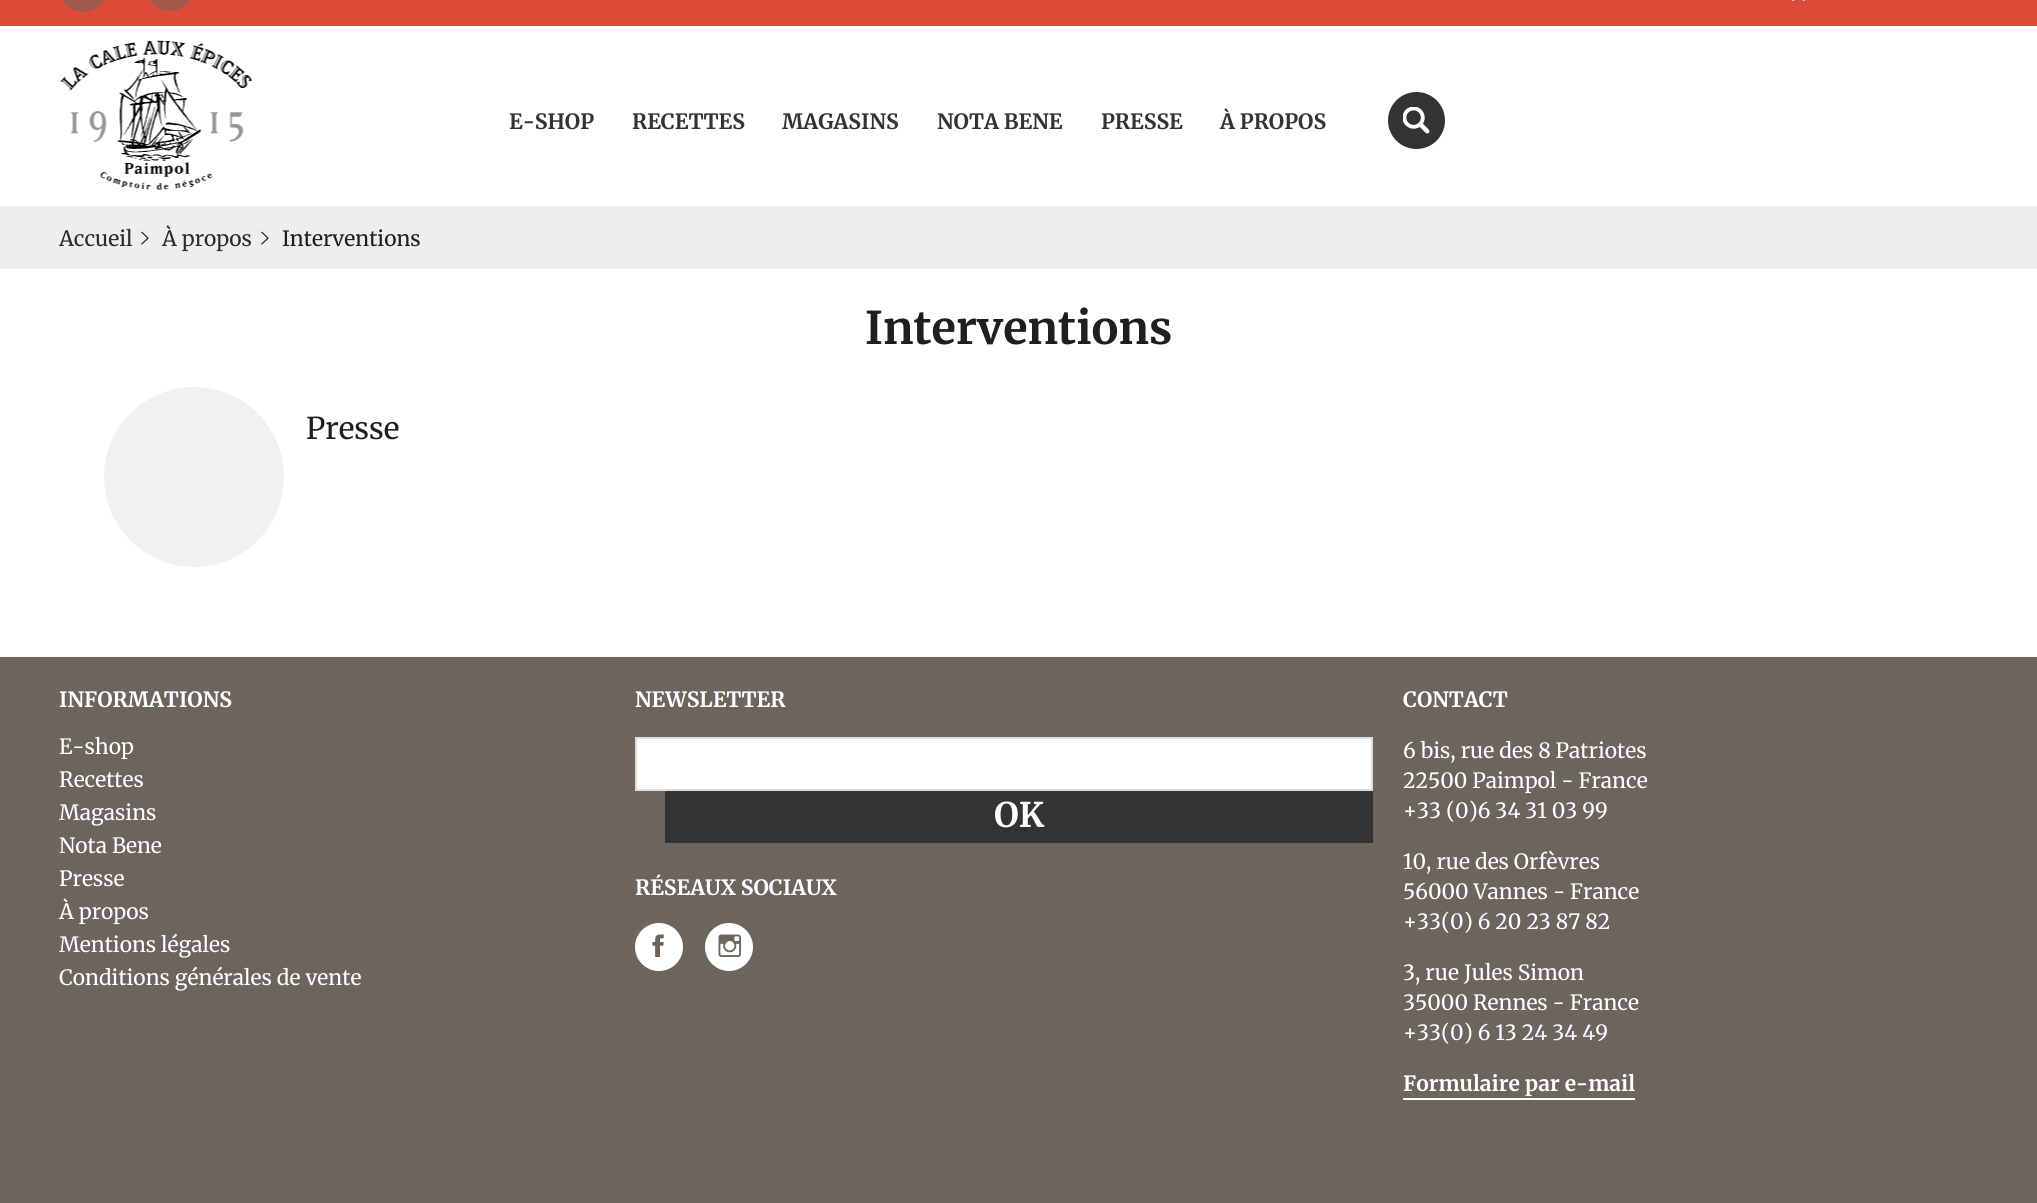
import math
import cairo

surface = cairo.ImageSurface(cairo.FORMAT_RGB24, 2037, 1203)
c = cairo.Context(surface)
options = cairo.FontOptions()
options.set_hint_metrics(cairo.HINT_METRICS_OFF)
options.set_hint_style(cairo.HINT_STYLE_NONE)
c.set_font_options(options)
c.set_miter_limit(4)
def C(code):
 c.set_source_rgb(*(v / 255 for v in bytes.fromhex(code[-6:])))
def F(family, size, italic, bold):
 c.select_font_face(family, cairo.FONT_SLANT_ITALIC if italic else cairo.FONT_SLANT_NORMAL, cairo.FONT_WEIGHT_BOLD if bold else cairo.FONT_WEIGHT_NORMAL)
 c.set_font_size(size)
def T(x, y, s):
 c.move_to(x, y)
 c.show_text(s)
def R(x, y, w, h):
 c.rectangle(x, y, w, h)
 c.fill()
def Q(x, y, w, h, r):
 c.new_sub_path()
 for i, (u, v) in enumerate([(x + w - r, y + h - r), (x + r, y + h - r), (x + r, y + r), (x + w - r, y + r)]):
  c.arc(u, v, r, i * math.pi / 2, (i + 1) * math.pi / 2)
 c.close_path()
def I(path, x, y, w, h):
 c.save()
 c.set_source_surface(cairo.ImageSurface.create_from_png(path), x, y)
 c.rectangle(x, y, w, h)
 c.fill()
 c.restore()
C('ffffff')
c.paint()
C('dd4b38')
R(0,0,2037,26)
C('a1594c')
Q(59,-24,48,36,24)
c.fill()
Q(146,-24,48,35,24)
c.fill()
I('1.png',1791,0,15,1)
C('eeeeee')
R(0,206,2037,63)
I('2.png',60,40,193,150)
F('Merriweather',21,0,1)
C('333333')
T(509,129,'E-SHOP')
T(632,129,'RECETTES')
T(782,129,'MAGASINS')
T(937,129,'NOTA BENE')
T(1101,129,'PRESSE')
T(1220,129,'À PROPOS')
c.new_path()
c.arc(1416.5,120.5,28.5,0,2 * math.pi)
c.fill()
I('3.png',1403,107,27,27)
F('Merriweather',21,0,0)
C('2c2c2c')
T(59,246,'Accueil')
I('4.png',141,231,8,14)
T(162,246,'À propos')
I('4.png',261,231,8,14)
C('1f1f1f')
T(282,246,'Interventions')
F('Merriweather',45,0,1)
T(865,344,'Interventions')
C('f1f1f1')
c.new_path()
c.arc(194,477,90,0,2 * math.pi)
c.fill()
F('Merriweather',30,0,0)
C('1f1f1f')
T(306,439,'Presse')
C('6b655d')
R(0,657,2037,546)
F('Merriweather',21,0,1)
C('ffffff')
T(59,707,'INFORMATIONS')
F('Merriweather',21,0,0)
T(59,754,'E-shop')
T(59,787,'Recettes')
T(59,820,'Magasins')
T(59,853,'Nota Bene')
T(59,886,'Presse')
T(59,919,'À propos')
T(59,952,'Mentions légales')
T(59,985,'Conditions générales de vente')
F('Merriweather',21,0,1)
T(635,707,'NEWSLETTER')
c.rectangle(636,738,736,52)
c.fill_preserve()
C('dddddd')
c.stroke()
C('333333')
R(665,791,708,52)
F('Merriweather',34,0,1)
C('ffffff')
T(994,827,'OK')
F('Merriweather',21,0,1)
T(635,895,'RÉSEAUX SOCIAUX')
c.new_path()
c.arc(659,947,24,0,2 * math.pi)
c.fill()
I('5.png',652,934,12,23)
c.arc(729,947,24,0,2 * math.pi)
c.fill()
I('6.png',718,934,23,23)
T(1403,707,'CONTACT')
F('Merriweather',21,0,0)
T(1403,758,'6 bis, rue des 8 Patriotes')
T(1403,788,'22500 Paimpol - France')
T(1403,818,'+33 (0)6 34 31 03 99')
T(1403,869,'10, rue des Orfèvres')
T(1403,899,'56000 Vannes - France')
T(1403,929,'+33(0) 6 20 23 87 82')
T(1403,980,'3, rue Jules Simon')
T(1403,1010,'35000 Rennes - France')
T(1403,1040,'+33(0) 6 13 24 34 49')
F('Merriweather',21,0,1)
T(1403,1091,'Formulaire par e-mail')
R(1403,1098,232,2)
surface.write_to_png('o.png')
